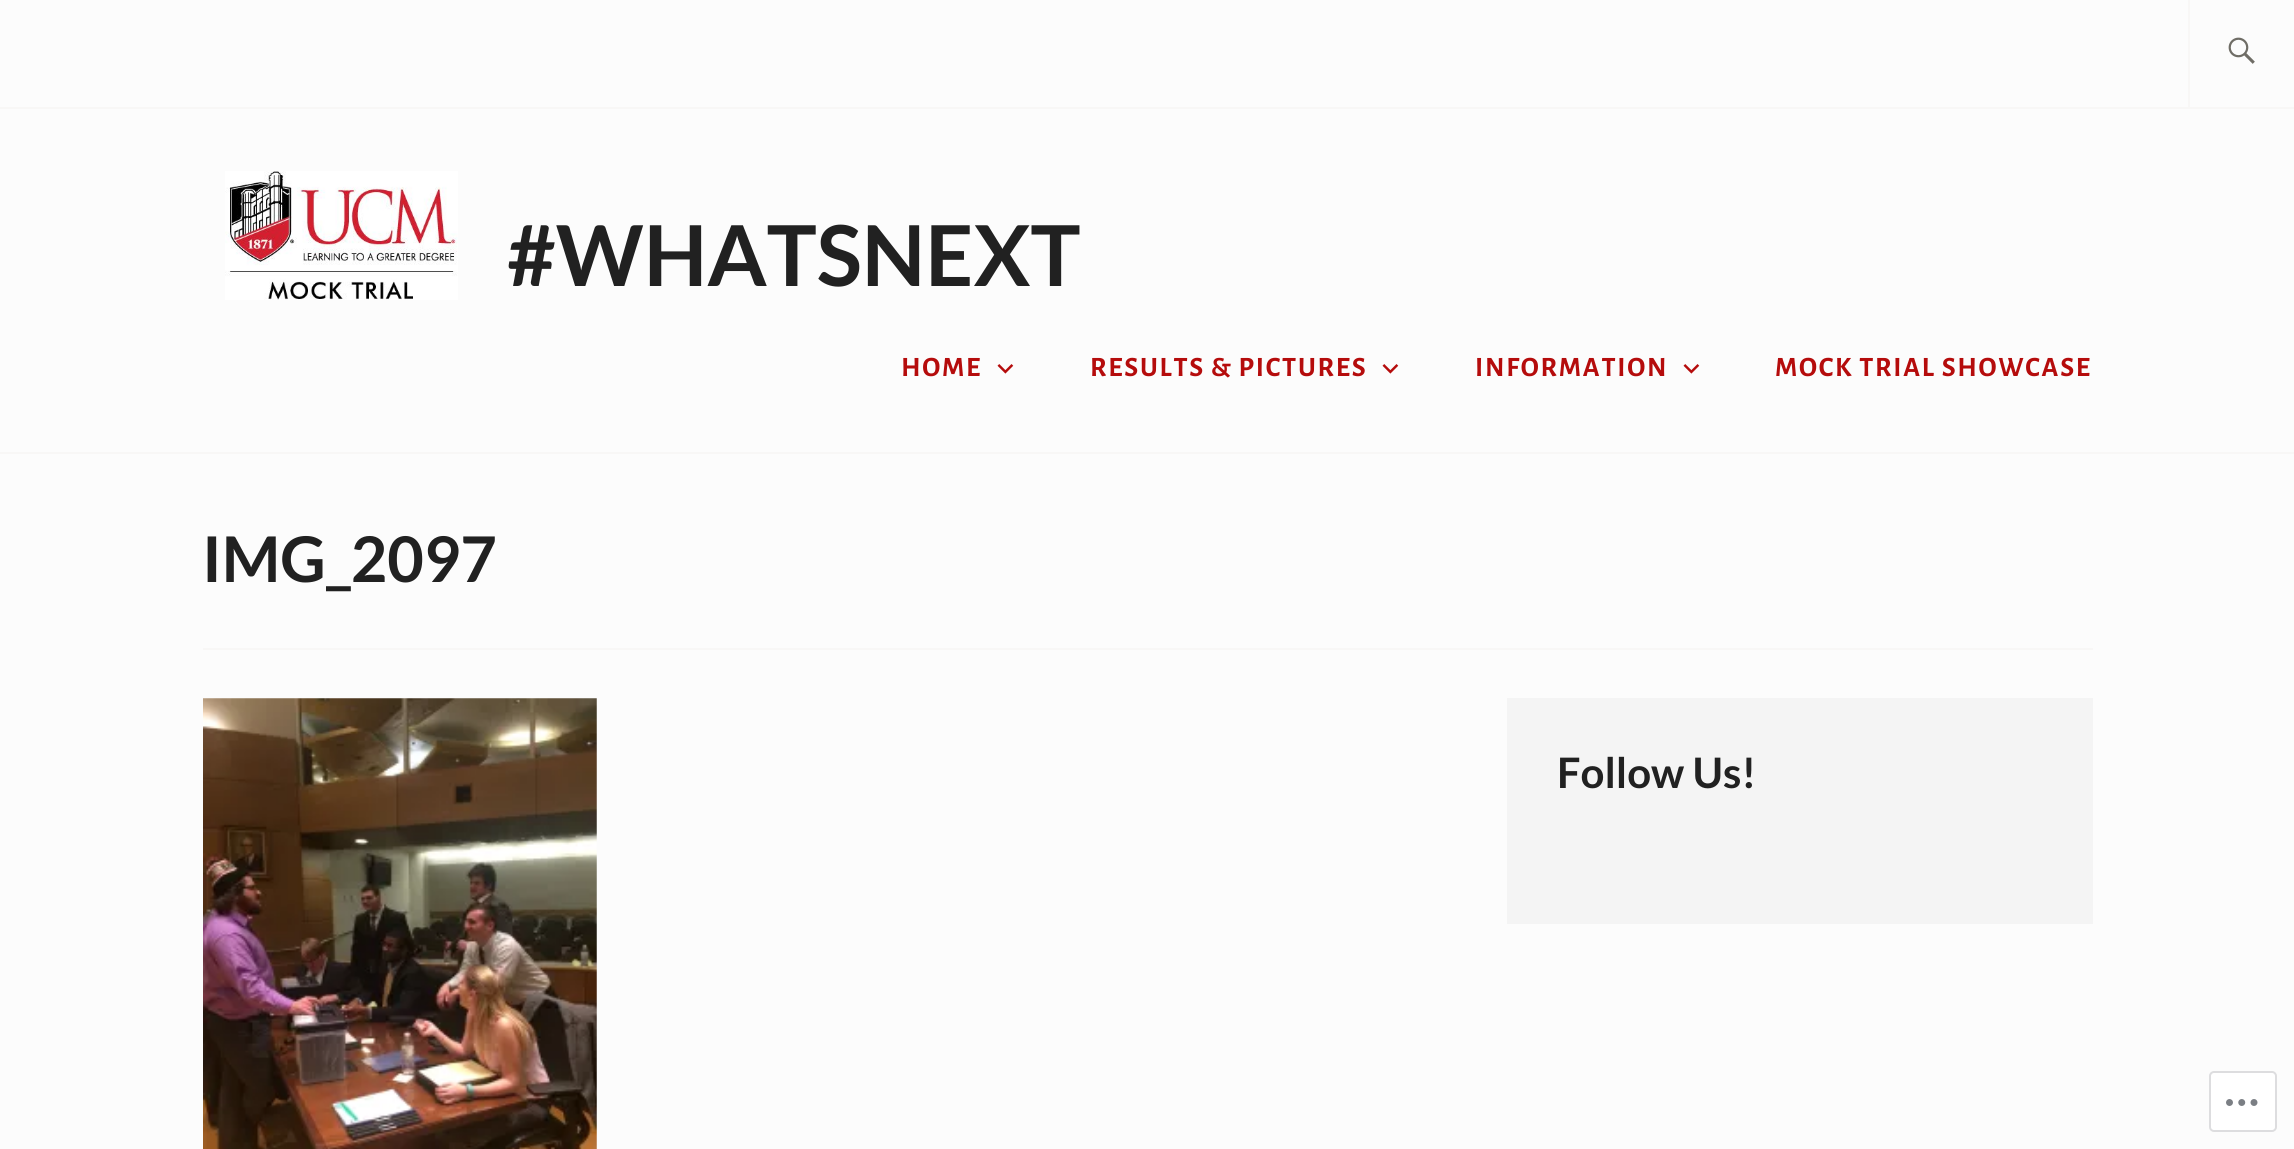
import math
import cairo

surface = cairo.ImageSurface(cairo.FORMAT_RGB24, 2294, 1149)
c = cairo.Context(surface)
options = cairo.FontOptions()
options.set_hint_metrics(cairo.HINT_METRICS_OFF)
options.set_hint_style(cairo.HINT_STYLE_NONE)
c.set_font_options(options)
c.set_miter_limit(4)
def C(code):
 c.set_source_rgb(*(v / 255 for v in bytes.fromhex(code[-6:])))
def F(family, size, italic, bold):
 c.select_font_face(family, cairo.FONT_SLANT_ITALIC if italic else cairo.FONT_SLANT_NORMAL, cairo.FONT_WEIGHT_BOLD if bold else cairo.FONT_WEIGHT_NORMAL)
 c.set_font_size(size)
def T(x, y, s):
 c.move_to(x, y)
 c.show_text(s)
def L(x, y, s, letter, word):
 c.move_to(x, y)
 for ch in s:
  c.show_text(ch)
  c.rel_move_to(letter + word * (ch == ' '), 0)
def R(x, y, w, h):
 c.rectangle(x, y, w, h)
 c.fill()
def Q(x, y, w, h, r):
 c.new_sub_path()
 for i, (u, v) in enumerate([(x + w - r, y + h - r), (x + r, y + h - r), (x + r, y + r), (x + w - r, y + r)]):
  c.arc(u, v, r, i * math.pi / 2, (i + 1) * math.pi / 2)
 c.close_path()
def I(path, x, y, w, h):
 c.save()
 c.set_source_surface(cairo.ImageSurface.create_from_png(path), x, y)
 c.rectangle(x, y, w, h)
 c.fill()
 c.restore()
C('fcfcfc')
c.paint()
C('f8f7f6')
R(0,452,2294,2)
R(0,107,2294,2)
R(2188,0,2,107)
I('1.png',2228,37,27,27)
I('2.png',225,171,233,129)
F('Lato',84,0,1)
C('212121')
T(507,286,'#WHATSNEXT')
F('Alegreya Sans',28,0,1)
C('b50c0c')
L(901,376,'HOME',1.75,0)
I('3.png',997,364,17,10)
L(1090,376,'RESULTS & PICTURES',1.75,0)
I('3.png',1382,364,17,10)
L(1475,376,'INFORMATION',1.75,0)
I('3.png',1683,364,17,10)
L(1775,376,'MOCK TRIAL SHOWCASE',1.75,0)
C('f8f7f6')
R(203,648,1890,2)
F('Lato',63,0,1)
C('212121')
T(202,582,'IMG_2097')
I('4.png',203,698,394,451)
C('f4f4f4')
R(1507,698,586,226)
F('Lato',42,0,1)
C('212121')
T(1557,788,'Follow Us!')
C('ffffff')
Q(2210,1072,66,59,4)
c.fill_preserve()
C('dddddf')
c.stroke()
I('5.png',2226,1099,32,7)
surface.write_to_png('o.png')
